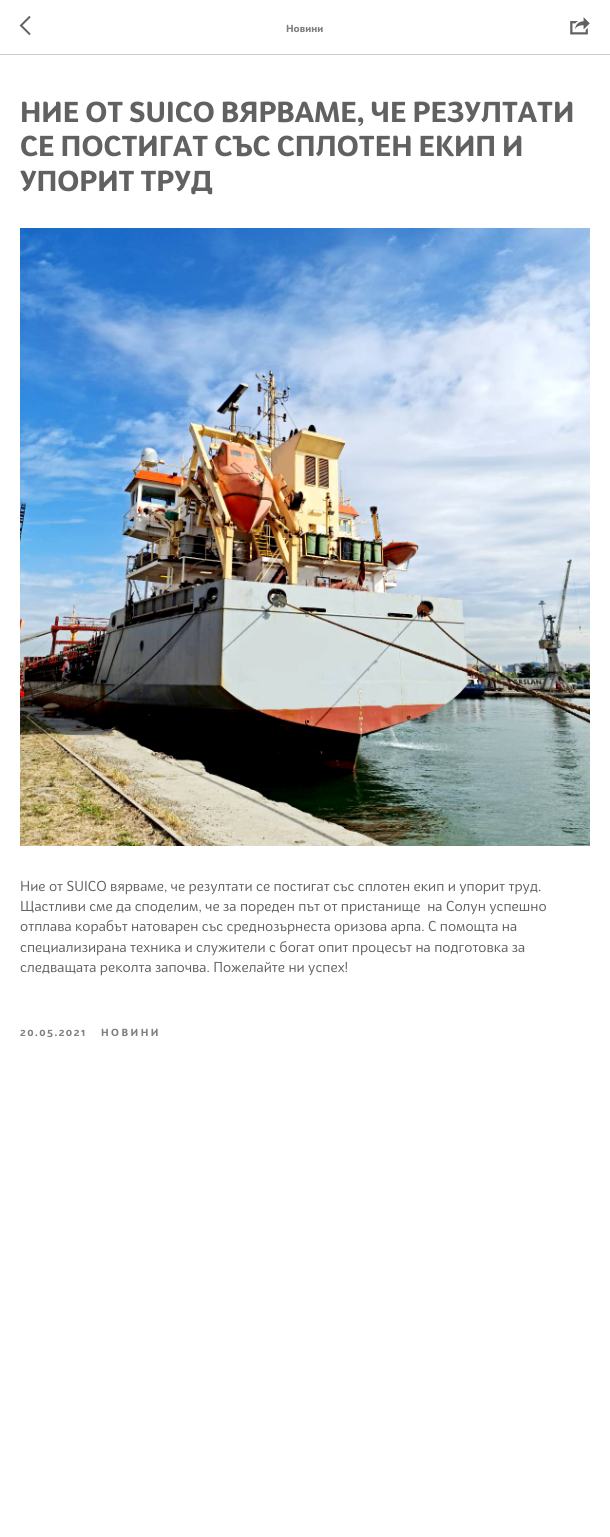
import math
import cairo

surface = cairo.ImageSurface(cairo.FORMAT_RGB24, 610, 1537)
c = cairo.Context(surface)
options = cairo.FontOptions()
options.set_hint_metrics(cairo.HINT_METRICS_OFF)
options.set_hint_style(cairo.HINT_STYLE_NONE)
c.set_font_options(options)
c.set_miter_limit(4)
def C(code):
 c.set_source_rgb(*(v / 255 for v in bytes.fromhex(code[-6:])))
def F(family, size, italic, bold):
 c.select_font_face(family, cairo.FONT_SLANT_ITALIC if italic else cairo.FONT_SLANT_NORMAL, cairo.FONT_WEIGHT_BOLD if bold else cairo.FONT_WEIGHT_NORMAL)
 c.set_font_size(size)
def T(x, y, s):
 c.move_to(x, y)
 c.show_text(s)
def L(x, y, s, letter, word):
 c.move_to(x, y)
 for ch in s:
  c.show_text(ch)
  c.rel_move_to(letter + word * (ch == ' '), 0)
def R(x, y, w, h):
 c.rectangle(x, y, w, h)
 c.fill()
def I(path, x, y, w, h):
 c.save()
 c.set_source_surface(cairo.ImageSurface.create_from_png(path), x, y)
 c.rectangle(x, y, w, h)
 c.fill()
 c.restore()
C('ffffff')
c.paint()
C('cccccc')
R(0,54,610,1)
c.new_path()
c.move_to(30,34.5)
c.line_to(21,25.5)
c.line_to(30,16.5)
C('616161')
c.stroke()
F('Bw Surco',10,0,1)
C('808080')
T(286,32,'Новини')
I('1.png',570,17,20,18)
F('Bw Surco',28,0,1)
C('616161')
T(20,122,'НИЕ ОТ SUICO ВЯРВАМЕ, ЧЕ РЕЗУЛТАТИ')
T(20,156,'СЕ ПОСТИГАТ СЪС СПЛОТЕН ЕКИП И')
T(20,191,'УПОРИТ ТРУД')
I('2.png',20,228,570,618)
F('Bw Surco',14,0,0)
T(20,891,'Ние от SUICO вярваме, че резултати се постигат със сплотен екип и упорит труд.')
T(20,911,'Щастливи сме да споделим, че за пореден път от пристанище  на Солун успешно')
T(20,931,'отплава корабът натоварен със среднозърнеста оризова арпа. С помощта на')
T(20,952,'специализирана техника и служители с богат опит процесът на подготовка за')
T(20,972,'следващата реколта започва. Пожелайте ни успех!')
F('Bw Surco',10,0,1)
C('808080')
L(20,1036,'20.05.2021',1.5,0)
L(101,1036,'НОВИНИ',2.5,0)
surface.write_to_png('o.png')
